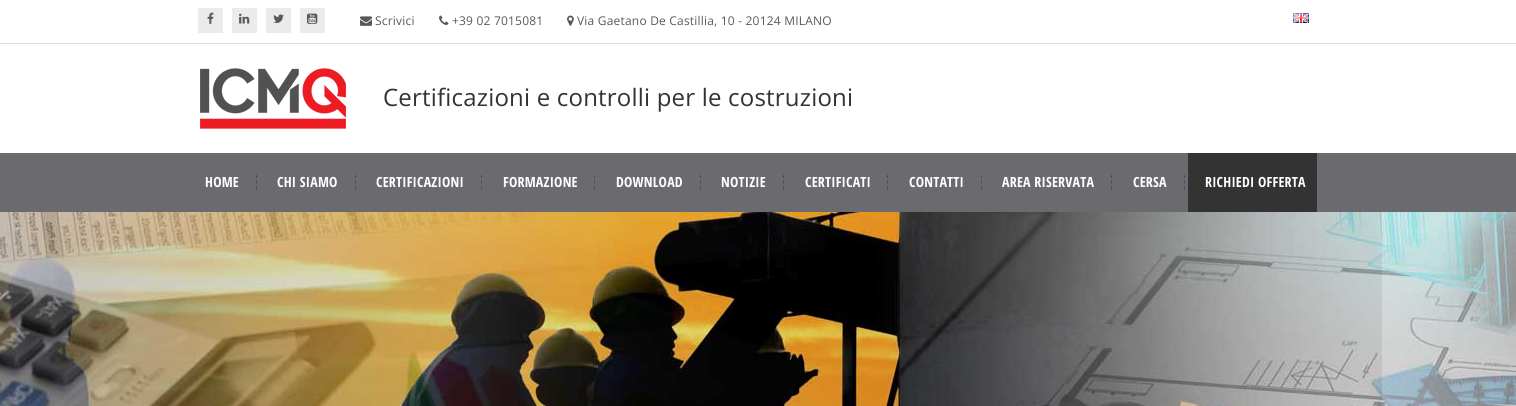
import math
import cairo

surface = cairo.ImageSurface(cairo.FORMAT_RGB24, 1516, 406)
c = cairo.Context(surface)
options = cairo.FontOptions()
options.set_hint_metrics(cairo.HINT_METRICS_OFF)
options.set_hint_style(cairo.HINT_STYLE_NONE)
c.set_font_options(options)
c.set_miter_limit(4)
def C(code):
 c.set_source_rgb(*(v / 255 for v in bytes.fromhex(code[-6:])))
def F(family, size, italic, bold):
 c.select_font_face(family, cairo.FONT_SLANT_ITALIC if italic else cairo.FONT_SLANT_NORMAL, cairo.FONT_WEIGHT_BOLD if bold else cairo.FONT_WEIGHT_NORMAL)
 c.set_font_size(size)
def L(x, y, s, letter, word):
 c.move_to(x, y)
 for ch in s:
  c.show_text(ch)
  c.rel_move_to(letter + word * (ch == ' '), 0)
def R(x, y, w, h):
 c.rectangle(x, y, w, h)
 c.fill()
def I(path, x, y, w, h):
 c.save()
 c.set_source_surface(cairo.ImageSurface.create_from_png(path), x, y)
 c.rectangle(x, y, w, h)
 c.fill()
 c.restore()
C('ffffff')
c.paint()
C('dddddd')
R(0,43,1516,1)
C('ebebeb')
R(198,8,25,25)
I('1.png',207,12,7,12)
R(232,8,25,25)
I('2.png',239,13,11,11)
R(266,8,25,25)
I('3.png',273,14,11,9)
R(300,8,25,25)
I('4.png',307,13,11,11)
I('5.png',360,16,12,10)
F('Open Sans',12,0,0)
C('595959')
L(375,25,'Scrivici',.2,0)
I('6.png',439,15,10,10)
L(452,25,'+39 02 7015081',.2,0)
I('7.png',567,15,7,11)
L(577,25,'Via Gaetano De Castillia, 10 - 20124 MILANO',.2,0)
I('8.png',1293,13,16,10)
I('9.png',200,68,146,61)
F('Open Sans',24,0,0)
C('333333')
L(383,106,'Certificazioni e controlli per le costruzioni',.2,0)
C('6b6b6f')
R(0,153,1516,59)
c.new_path()
c.move_to(256.5,175)
c.line_to(256.5,178)
c.move_to(256.5,180.5)
c.line_to(256.5,183.5)
c.move_to(256.5,186)
c.line_to(256.5,189)
C('3f5262')
c.set_line_width(1)
c.stroke()
F('Open Sans Condensed',14,0,1)
C('ffffff')
L(205,187,'HOME',.2,0)
c.new_path()
c.move_to(355.5,175)
c.line_to(355.5,178)
c.move_to(355.5,180.5)
c.line_to(355.5,183.5)
c.move_to(355.5,186)
c.line_to(355.5,189)
C('3f5262')
c.stroke()
C('ffffff')
L(277,187,'CHI SIAMO',.2,0)
c.new_path()
c.move_to(481.5,175)
c.line_to(481.5,178)
c.move_to(481.5,180.5)
c.line_to(481.5,183.5)
c.move_to(481.5,186)
c.line_to(481.5,189)
C('3f5262')
c.stroke()
C('ffffff')
L(376,187,'CERTIFICAZIONI',.2,0)
c.new_path()
c.move_to(594.5,175)
c.line_to(594.5,178)
c.move_to(594.5,180.5)
c.line_to(594.5,183.5)
c.move_to(594.5,186)
c.line_to(594.5,189)
C('3f5262')
c.stroke()
C('ffffff')
L(503,187,'FORMAZIONE',.2,0)
c.new_path()
c.move_to(700.5,175)
c.line_to(700.5,178)
c.move_to(700.5,180.5)
c.line_to(700.5,183.5)
c.move_to(700.5,186)
c.line_to(700.5,189)
C('3f5262')
c.stroke()
C('ffffff')
L(616,187,'DOWNLOAD',.2,0)
c.new_path()
c.move_to(783.5,175)
c.line_to(783.5,178)
c.move_to(783.5,180.5)
c.line_to(783.5,183.5)
c.move_to(783.5,186)
c.line_to(783.5,189)
C('3f5262')
c.stroke()
C('ffffff')
L(721,187,'NOTIZIE',.2,0)
c.new_path()
c.move_to(887.5,175)
c.line_to(887.5,178)
c.move_to(887.5,180.5)
c.line_to(887.5,183.5)
c.move_to(887.5,186)
c.line_to(887.5,189)
C('3f5262')
c.stroke()
C('ffffff')
L(805,187,'CERTIFICATI',.2,0)
c.new_path()
c.move_to(981.5,175)
c.line_to(981.5,178)
c.move_to(981.5,180.5)
c.line_to(981.5,183.5)
c.move_to(981.5,186)
c.line_to(981.5,189)
C('3f5262')
c.stroke()
C('ffffff')
L(909,187,'CONTATTI',.2,0)
c.new_path()
c.move_to(1111.5,175)
c.line_to(1111.5,178)
c.move_to(1111.5,180.5)
c.line_to(1111.5,183.5)
c.move_to(1111.5,186)
c.line_to(1111.5,189)
C('3f5262')
c.stroke()
C('ffffff')
L(1002,187,'AREA RISERVATA',.2,0)
c.new_path()
c.move_to(1184.5,175)
c.line_to(1184.5,178)
c.move_to(1184.5,180.5)
c.line_to(1184.5,183.5)
c.move_to(1184.5,186)
c.line_to(1184.5,189)
C('3f5262')
c.stroke()
C('ffffff')
L(1133,187,'CERSA',.2,0)
C('333333')
R(1188,153,129,59)
C('ffffff')
L(1205,187,'RICHIEDI OFFERTA',.2,0)
I('10.png',0,212,1516,194)
surface.write_to_png('o.png')
